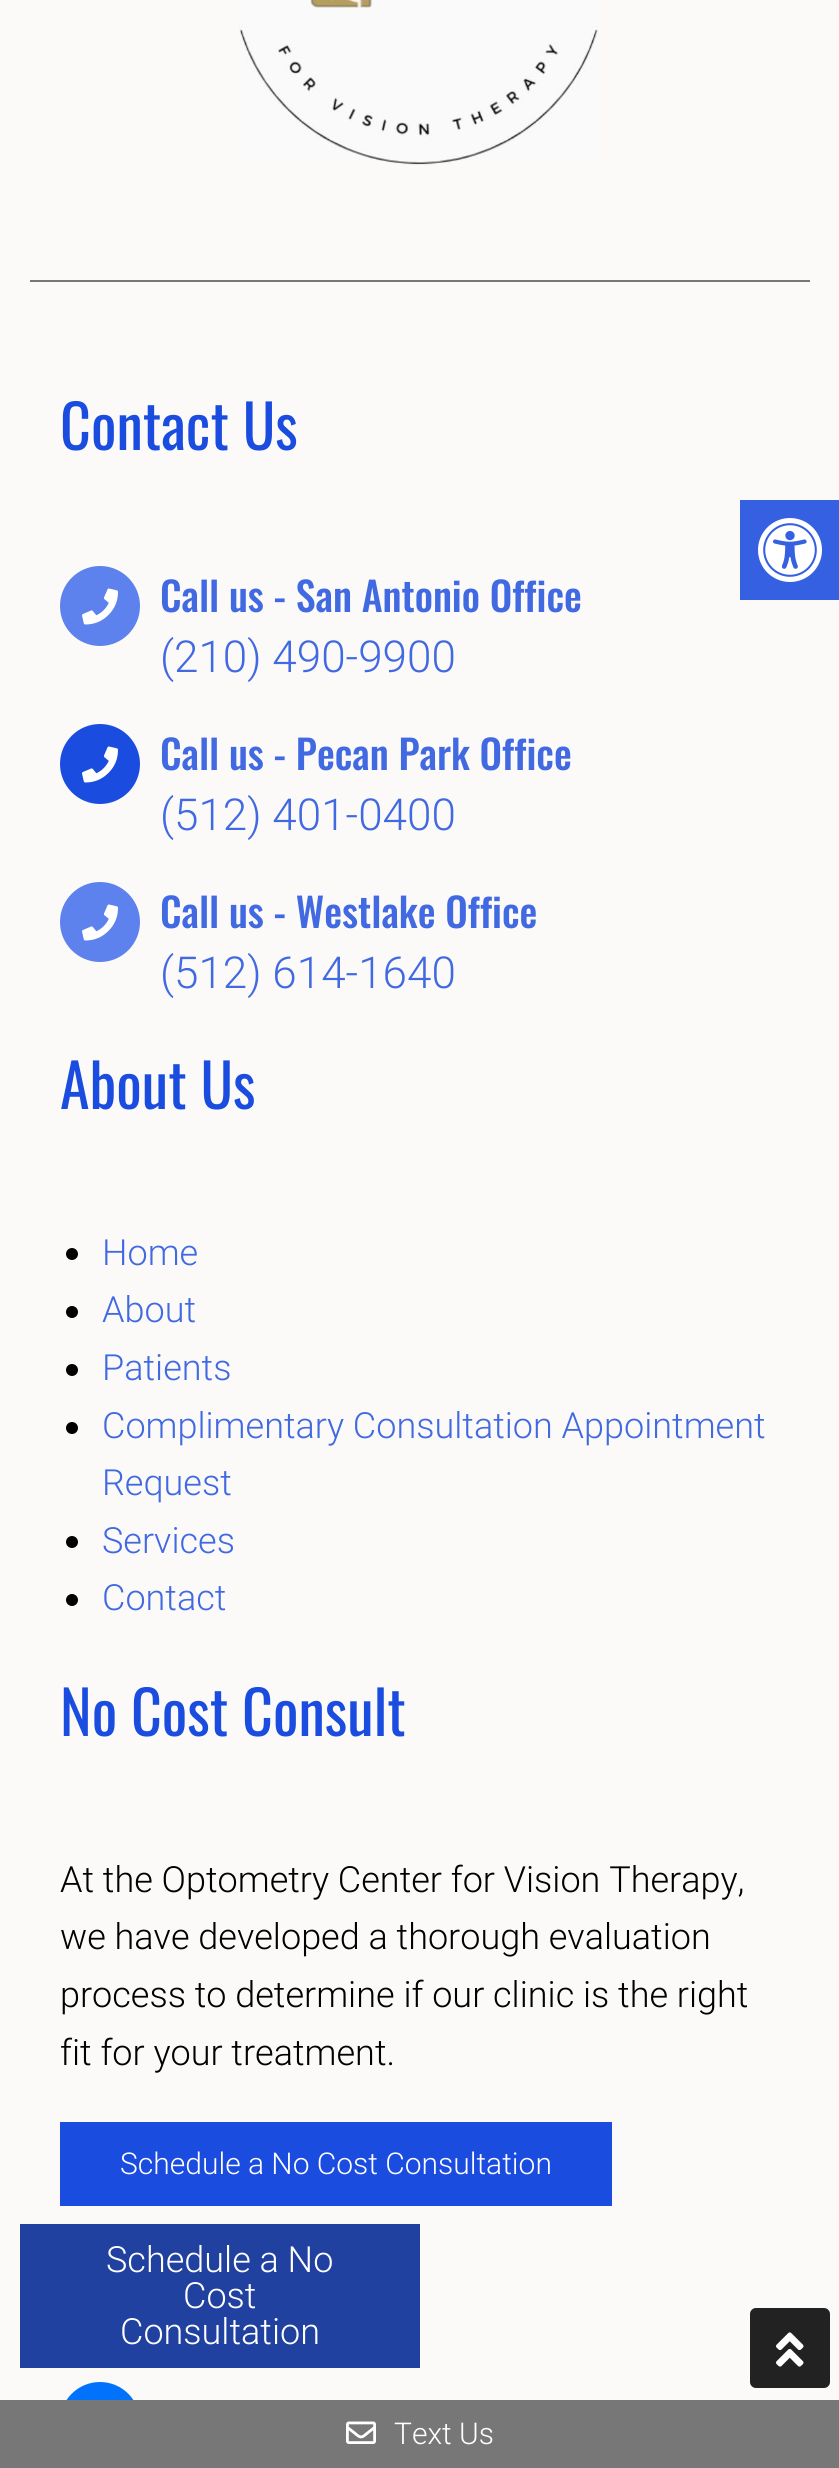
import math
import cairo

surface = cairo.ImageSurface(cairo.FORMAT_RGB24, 839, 2468)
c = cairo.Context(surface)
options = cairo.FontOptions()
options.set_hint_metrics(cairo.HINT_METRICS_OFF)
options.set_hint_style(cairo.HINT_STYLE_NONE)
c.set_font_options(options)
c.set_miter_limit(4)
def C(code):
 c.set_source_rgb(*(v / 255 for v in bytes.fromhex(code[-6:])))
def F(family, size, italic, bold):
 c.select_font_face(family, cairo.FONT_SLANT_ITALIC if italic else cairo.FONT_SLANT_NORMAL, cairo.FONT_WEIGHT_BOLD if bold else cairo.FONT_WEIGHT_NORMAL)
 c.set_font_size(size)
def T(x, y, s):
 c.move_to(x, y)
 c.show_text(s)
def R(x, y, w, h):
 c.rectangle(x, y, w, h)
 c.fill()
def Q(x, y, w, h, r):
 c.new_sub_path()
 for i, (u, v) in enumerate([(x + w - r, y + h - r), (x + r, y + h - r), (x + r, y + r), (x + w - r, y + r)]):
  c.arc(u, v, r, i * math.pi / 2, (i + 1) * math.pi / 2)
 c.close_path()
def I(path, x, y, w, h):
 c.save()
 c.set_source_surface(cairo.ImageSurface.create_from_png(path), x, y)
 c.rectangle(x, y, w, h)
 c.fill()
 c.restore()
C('fbfaf8')
c.paint()
C('777777')
R(30,280,780,2)
I('1.png',238,0,362,166)
F('Oswald',60,0,0)
C('1a4ce0')
T(60,450,'Contact Us')
C('5d81ed')
c.new_path()
c.arc(100,606,40,0,2 * math.pi)
c.fill()
I('2.png',82,588,36,37)
F('Oswald Medium',40,0,0)
C('4169e1')
T(160,612,'Call us - San Antonio Office')
F('Roboto Light',44,0,0)
T(160,672,'(210) 490-9900')
C('1a4ce0')
c.new_path()
c.arc(100,764,40,0,2 * math.pi)
c.fill()
I('3.png',82,746,36,37)
F('Oswald Medium',40,0,0)
C('4169e1')
T(160,770,'Call us - Pecan Park Office')
F('Roboto Light',44,0,0)
T(160,830,'(512) 401-0400')
C('5d81ed')
c.new_path()
c.arc(100,922,40,0,2 * math.pi)
c.fill()
I('2.png',82,904,36,37)
F('Oswald Medium',40,0,0)
C('4169e1')
T(160,928,'Call us - Westlake Office')
F('Roboto Light',44,0,0)
T(160,988,'(512) 614-1640')
F('Oswald',60,0,0)
C('1a4ce0')
T(60,1109,'About Us')
C('000000')
c.new_path()
c.arc(72,1254,6,0,2 * math.pi)
c.fill()
F('Roboto Light',36,0,0)
C('4169e1')
T(102,1265,'Home')
C('000000')
c.new_path()
c.arc(72,1312,6,0,2 * math.pi)
c.fill()
C('4169e1')
T(102,1322,'About')
C('000000')
c.new_path()
c.arc(72,1370,6,0,2 * math.pi)
c.fill()
C('4169e1')
T(102,1380,'Patients')
C('000000')
c.new_path()
c.arc(72,1428,6,0,2 * math.pi)
c.fill()
C('4169e1')
T(102,1438,'Complimentary Consultation Appointment')
T(102,1495,'Request')
C('000000')
c.new_path()
c.arc(72,1542,6,0,2 * math.pi)
c.fill()
C('4169e1')
T(102,1553,'Services')
C('000000')
c.new_path()
c.arc(72,1600,6,0,2 * math.pi)
c.fill()
C('4169e1')
T(102,1610,'Contact')
F('Oswald',60,0,0)
C('1a4ce0')
T(60,1736,'No Cost Consult')
F('Roboto Light',36,0,0)
C('000000')
T(60,1892,'At the Optometry Center for Vision Therapy,')
T(60,1949,'we have developed a thorough evaluation')
T(60,2007,'process to determine if our clinic is the right')
T(60,2065,'fit for your treatment.')
C('1a4ce0')
R(60,2122,552,84)
F('Roboto Light',30,0,0)
C('ffffff')
T(120,2174,'Schedule a No Cost Consultation')
C('0072fb')
c.new_path()
c.arc(100,2422,40,0,2 * math.pi)
c.fill()
C('2141a0')
R(20,2224,400,144)
F('Roboto Light',36,0,0)
C('ffffff')
T(106,2272,'Schedule a No')
T(183,2308,'Cost')
T(120,2344,'Consultation')
C('3560e1')
R(740,500,99,100)
I('4.png',758,518,64,64)
C('222222')
Q(750,2308,80,80,6)
c.fill()
I('5.png',776,2332,28,35)
C('777777')
R(0,2400,839,68)
I('6.png',346,2421,30,23)
F('Roboto Light',30,0,0)
C('ffffff')
T(394,2444,'Text Us')
surface.write_to_png('o.png')
